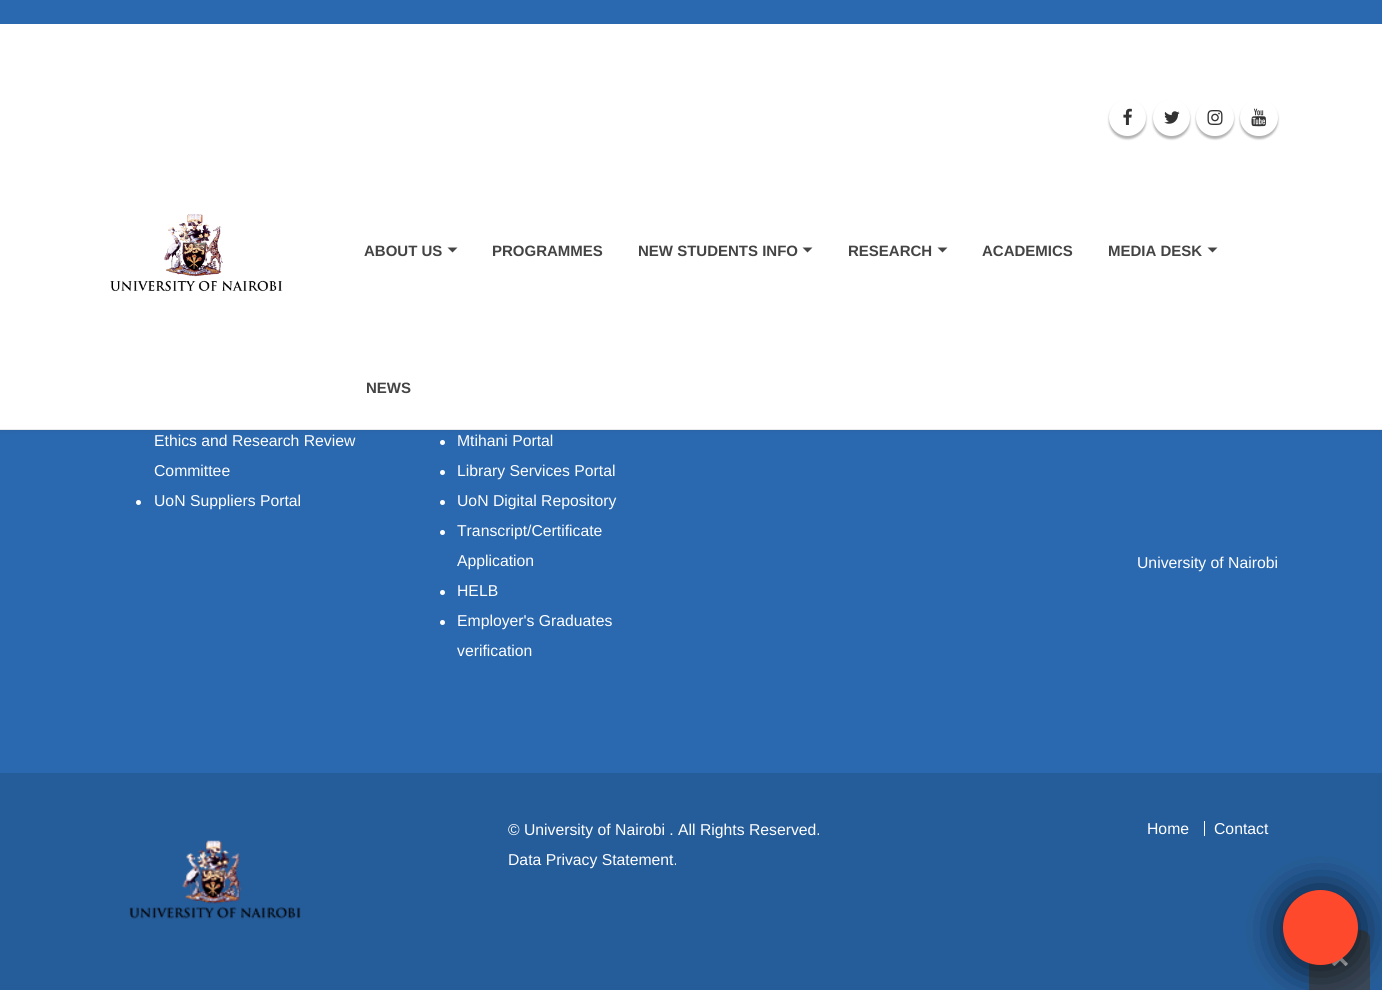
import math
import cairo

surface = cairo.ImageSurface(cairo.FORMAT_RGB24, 1382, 990)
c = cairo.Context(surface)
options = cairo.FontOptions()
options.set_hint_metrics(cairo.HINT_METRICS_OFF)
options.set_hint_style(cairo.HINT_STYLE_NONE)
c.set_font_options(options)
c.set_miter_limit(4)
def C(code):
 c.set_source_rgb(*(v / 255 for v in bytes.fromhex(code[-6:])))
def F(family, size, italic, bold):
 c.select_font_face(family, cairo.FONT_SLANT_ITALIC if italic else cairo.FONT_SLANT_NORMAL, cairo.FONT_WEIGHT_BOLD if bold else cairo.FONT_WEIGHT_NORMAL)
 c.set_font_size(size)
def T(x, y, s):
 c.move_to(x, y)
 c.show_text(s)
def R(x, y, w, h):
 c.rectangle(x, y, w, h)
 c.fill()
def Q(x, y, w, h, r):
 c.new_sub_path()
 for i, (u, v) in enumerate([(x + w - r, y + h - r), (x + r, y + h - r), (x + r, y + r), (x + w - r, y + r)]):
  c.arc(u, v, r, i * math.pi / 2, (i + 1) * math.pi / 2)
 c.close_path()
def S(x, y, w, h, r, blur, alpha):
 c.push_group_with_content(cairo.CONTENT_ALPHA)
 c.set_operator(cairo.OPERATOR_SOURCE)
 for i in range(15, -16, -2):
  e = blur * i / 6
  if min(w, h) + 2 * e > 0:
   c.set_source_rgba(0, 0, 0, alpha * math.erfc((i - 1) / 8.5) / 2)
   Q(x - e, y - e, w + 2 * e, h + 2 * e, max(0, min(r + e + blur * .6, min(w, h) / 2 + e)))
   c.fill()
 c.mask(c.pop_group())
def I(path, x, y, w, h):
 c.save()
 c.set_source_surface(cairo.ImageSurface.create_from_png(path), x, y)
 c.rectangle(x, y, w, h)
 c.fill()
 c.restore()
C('2a68af')
c.paint()
C('000000')
S(0,-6,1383,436,0,2,.1)
C('ffffff')
R(0,24,1382,405)
C('e9e9e9')
R(0,429,1382,1)
C('2a68af')
R(0,0,1382,24)
I('1.png',110,214,173,78)
C('000000')
S(1109,101,37,38,18.5,1,.3)
C('ffffff')
c.arc(1127.5,117.5,18.5,0,2 * math.pi)
c.fill()
I('2.png',1123,108,9,17)
C('000000')
S(1153,101,37,38,18.5,1,.3)
C('ffffff')
c.arc(1171.5,117.5,18.5,0,2 * math.pi)
c.fill()
I('3.png',1164,111,16,13)
C('000000')
S(1196,101,38,38,19,1,.3)
C('ffffff')
Q(1196,99,38,37,18.5)
c.fill()
I('4.png',1207,110,16,15)
C('000000')
S(1240,101,38,38,19,1,.3)
C('ffffff')
Q(1240,99,38,37,18.5)
c.fill()
I('5.png',1251,108,15,19)
F('Liberation Sans',15,0,1)
C('444444')
T(364,256,'ABOUT US')
c.new_path()
c.move_to(447.5,247.5)
c.line_to(457.5,247.5)
c.line_to(452.5,252.5)
c.close_path()
c.fill()
T(492,256,'PROGRAMMES')
T(638,256,'NEW STUDENTS INFO')
c.new_path()
c.move_to(802.5,247.5)
c.line_to(812.5,247.5)
c.line_to(807.5,252.5)
c.close_path()
c.fill()
T(848,256,'RESEARCH')
c.new_path()
c.move_to(937.5,247.5)
c.line_to(947.5,247.5)
c.line_to(942.5,252.5)
c.close_path()
c.fill()
T(982,256,'ACADEMICS')
T(1108,256,'MEDIA DESK')
c.new_path()
c.move_to(1207.5,247.5)
c.line_to(1217.5,247.5)
c.line_to(1212.5,252.5)
c.close_path()
c.fill()
T(366,393,'NEWS')
F('Liberation Sans',15.75,0,0)
C('ffffff')
T(154,446,'Ethics and Research Review')
T(154,476,'Committee')
c.new_path()
c.arc(138.5,502.5,2.5,0,2 * math.pi)
c.fill()
T(154,506,'UoN Suppliers Portal')
c.new_path()
c.arc(442.5,442.5,2.5,0,2 * math.pi)
c.fill()
T(457,446,'Mtihani Portal')
c.new_path()
c.arc(442.5,472.5,2.5,0,2 * math.pi)
c.fill()
T(457,476,'Library Services Portal')
c.new_path()
c.arc(442.5,502.5,2.5,0,2 * math.pi)
c.fill()
T(457,506,'UoN Digital Repository')
c.new_path()
c.arc(442.5,532.5,2.5,0,2 * math.pi)
c.fill()
T(457,536,'Transcript/Certificate')
T(457,566,'Application')
c.new_path()
c.arc(442.5,592.5,2.5,0,2 * math.pi)
c.fill()
T(457,596,'HELB')
c.new_path()
c.arc(442.5,622.5,2.5,0,2 * math.pi)
c.fill()
T(457,626,'Employer\'s Graduates')
T(457,656,'verification')
C('255c9a')
R(0,773,1382,217)
C('394757')
c.new_path()
c.move_to(1318,930)
c.line_to(1361,930)
c.curve_to(1366,930,1370,934,1370,939)
c.line_to(1370,990)
c.line_to(1309,990)
c.line_to(1309,939)
c.curve_to(1309,934,1313,930,1318,930)
c.close_path()
c.fill()
I('7.png',1332,957,16,9)
C('000000')
S(1283,893,75,75,37.5,20,.16)
S(1283,893,75,75,37.5,20,.16)
S(1283,893,75,75,37.5,20,.16)
S(1283,893,75,75,37.5,20,.16)
C('ffffff')
T(1137,568,'University of Nairobi')
C('000000')
S(1283,893,75,75,37.5,20,.16)
S(1283,893,75,75,37.5,20,.16)
C('ffffff')
T(508,835,'© University of Nairobi . All Rights Reserved.')
T(508,865,'Data Privacy Statement.')
T(1147,834,'Home')
R(1204,821,1,15)
T(1214,834,'Contact')
I('6.png',129,840,172,79)
C('ff492c')
c.arc(1320.5,927.5,37.5,0,2 * math.pi)
c.fill()
surface.write_to_png('o.png')
